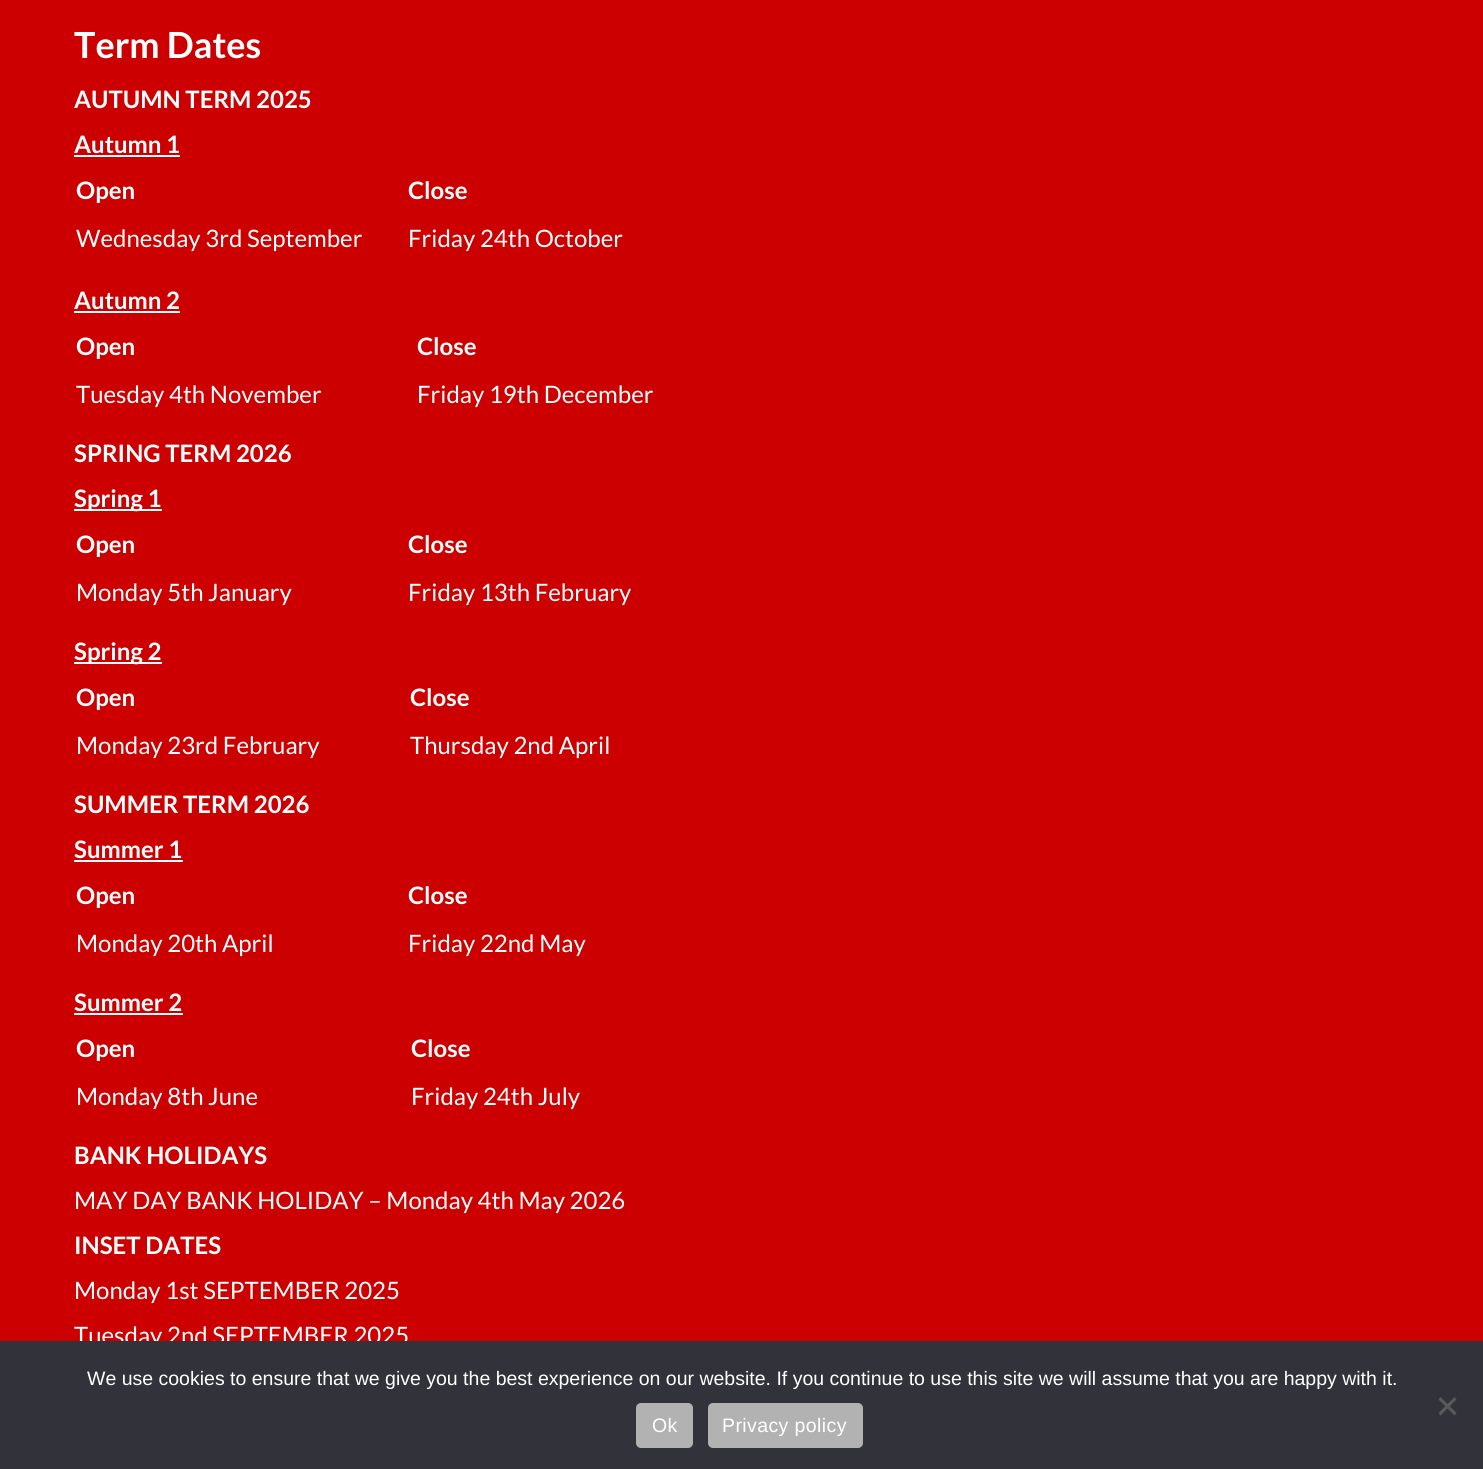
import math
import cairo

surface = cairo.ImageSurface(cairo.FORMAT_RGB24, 1483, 1469)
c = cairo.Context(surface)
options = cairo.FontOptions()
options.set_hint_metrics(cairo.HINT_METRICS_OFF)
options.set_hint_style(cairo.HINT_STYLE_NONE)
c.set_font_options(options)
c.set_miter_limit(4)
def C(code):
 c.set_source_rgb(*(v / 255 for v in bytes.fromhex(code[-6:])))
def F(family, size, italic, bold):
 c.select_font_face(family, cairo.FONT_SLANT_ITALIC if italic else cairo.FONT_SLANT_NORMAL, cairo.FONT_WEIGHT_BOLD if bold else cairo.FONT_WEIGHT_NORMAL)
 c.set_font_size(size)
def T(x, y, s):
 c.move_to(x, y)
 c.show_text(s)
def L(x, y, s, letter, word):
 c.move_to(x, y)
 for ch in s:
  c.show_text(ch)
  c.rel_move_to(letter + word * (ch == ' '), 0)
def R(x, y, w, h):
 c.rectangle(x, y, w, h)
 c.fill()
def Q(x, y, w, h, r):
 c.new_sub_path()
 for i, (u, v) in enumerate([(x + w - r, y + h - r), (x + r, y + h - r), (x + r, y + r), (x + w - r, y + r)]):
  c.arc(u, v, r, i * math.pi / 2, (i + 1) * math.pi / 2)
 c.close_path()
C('cc0000')
c.paint()
F('Lato',36,0,1)
C('ffffff')
T(74,58,'Term Dates')
F('Lato',24,0,1)
T(74,108,'AUTUMN TERM 2025')
T(74,153,'Autumn 1')
R(74,155,106,2)
T(76,199,'Open')
T(408,199,'Close')
F('Lato',24,0,0)
T(76,247,'Wednesday 3rd September')
T(408,247,'Friday 24th October')
F('Lato',24,0,1)
T(74,309,'Autumn 2')
R(74,311,106,2)
T(76,355,'Open')
T(417,355,'Close')
F('Lato',24,0,0)
T(76,403,'Tuesday 4th November')
T(417,403,'Friday 19th December')
F('Lato',24,0,1)
T(74,462,'SPRING TERM 2026')
R(74,509,88,2)
T(74,507,'Spring 1')
T(76,553,'Open')
T(408,553,'Close')
F('Lato',24,0,0)
T(76,601,'Monday 5th January')
T(408,601,'Friday 13th February')
R(74,662,88,2)
F('Lato',24,0,1)
T(74,660,'Spring 2')
T(76,706,'Open')
T(410,706,'Close')
F('Lato',24,0,0)
T(76,754,'Monday 23rd February')
T(410,754,'Thursday 2nd April')
F('Lato',24,0,1)
T(74,813,'SUMMER TERM 2026')
T(74,858,'Summer 1')
R(74,860,109,2)
T(76,904,'Open')
T(408,904,'Close')
F('Lato',24,0,0)
T(76,952,'Monday 20th April')
T(408,952,'Friday 22nd May')
F('Lato',24,0,1)
T(74,1011,'Summer 2')
R(74,1013,109,2)
T(76,1057,'Open')
T(411,1057,'Close')
F('Lato',24,0,0)
T(76,1105,'Monday 8th June')
T(411,1105,'Friday 24th July')
F('Lato',24,0,1)
T(74,1164,'BANK HOLIDAYS')
F('Lato',24,0,0)
T(74,1209,'MAY DAY BANK HOLIDAY – Monday 4th May 2026')
F('Lato',24,0,1)
T(74,1254,'INSET DATES')
F('Lato',24,0,0)
T(74,1299,'Monday 1st SEPTEMBER 2025')
T(74,1344,'Tuesday 2nd SEPTEMBER 2025')
C('32323a')
R(0,1341,1483,128)
F('Liberation Sans',19.5,0,0)
C('ffffff')
T(87,1385,'We use cookies to ensure that we give you the best experience on our website. If you continue to use this site we will assume that you are happy with it.')
C('59595d')
c.new_path()
c.move_to(1454.5,1397)
c.line_to(1456.5,1399.5)
c.line_to(1440.5,1415.5)
c.line_to(1438.5,1413)
c.close_path()
c.fill()
c.new_path()
c.move_to(1438.5,1399.5)
c.line_to(1440.5,1397)
c.line_to(1456.5,1413)
c.line_to(1454.5,1415.5)
c.close_path()
c.fill()
C('b2b2b2')
Q(636,1403,57,45,5)
c.fill()
C('ffffff')
L(652,1432,'Ok',.4,0)
C('b2b2b2')
Q(708,1403,155,45,5)
c.fill()
C('ffffff')
L(722,1432,'Privacy policy',.4,0)
surface.write_to_png('o.png')
